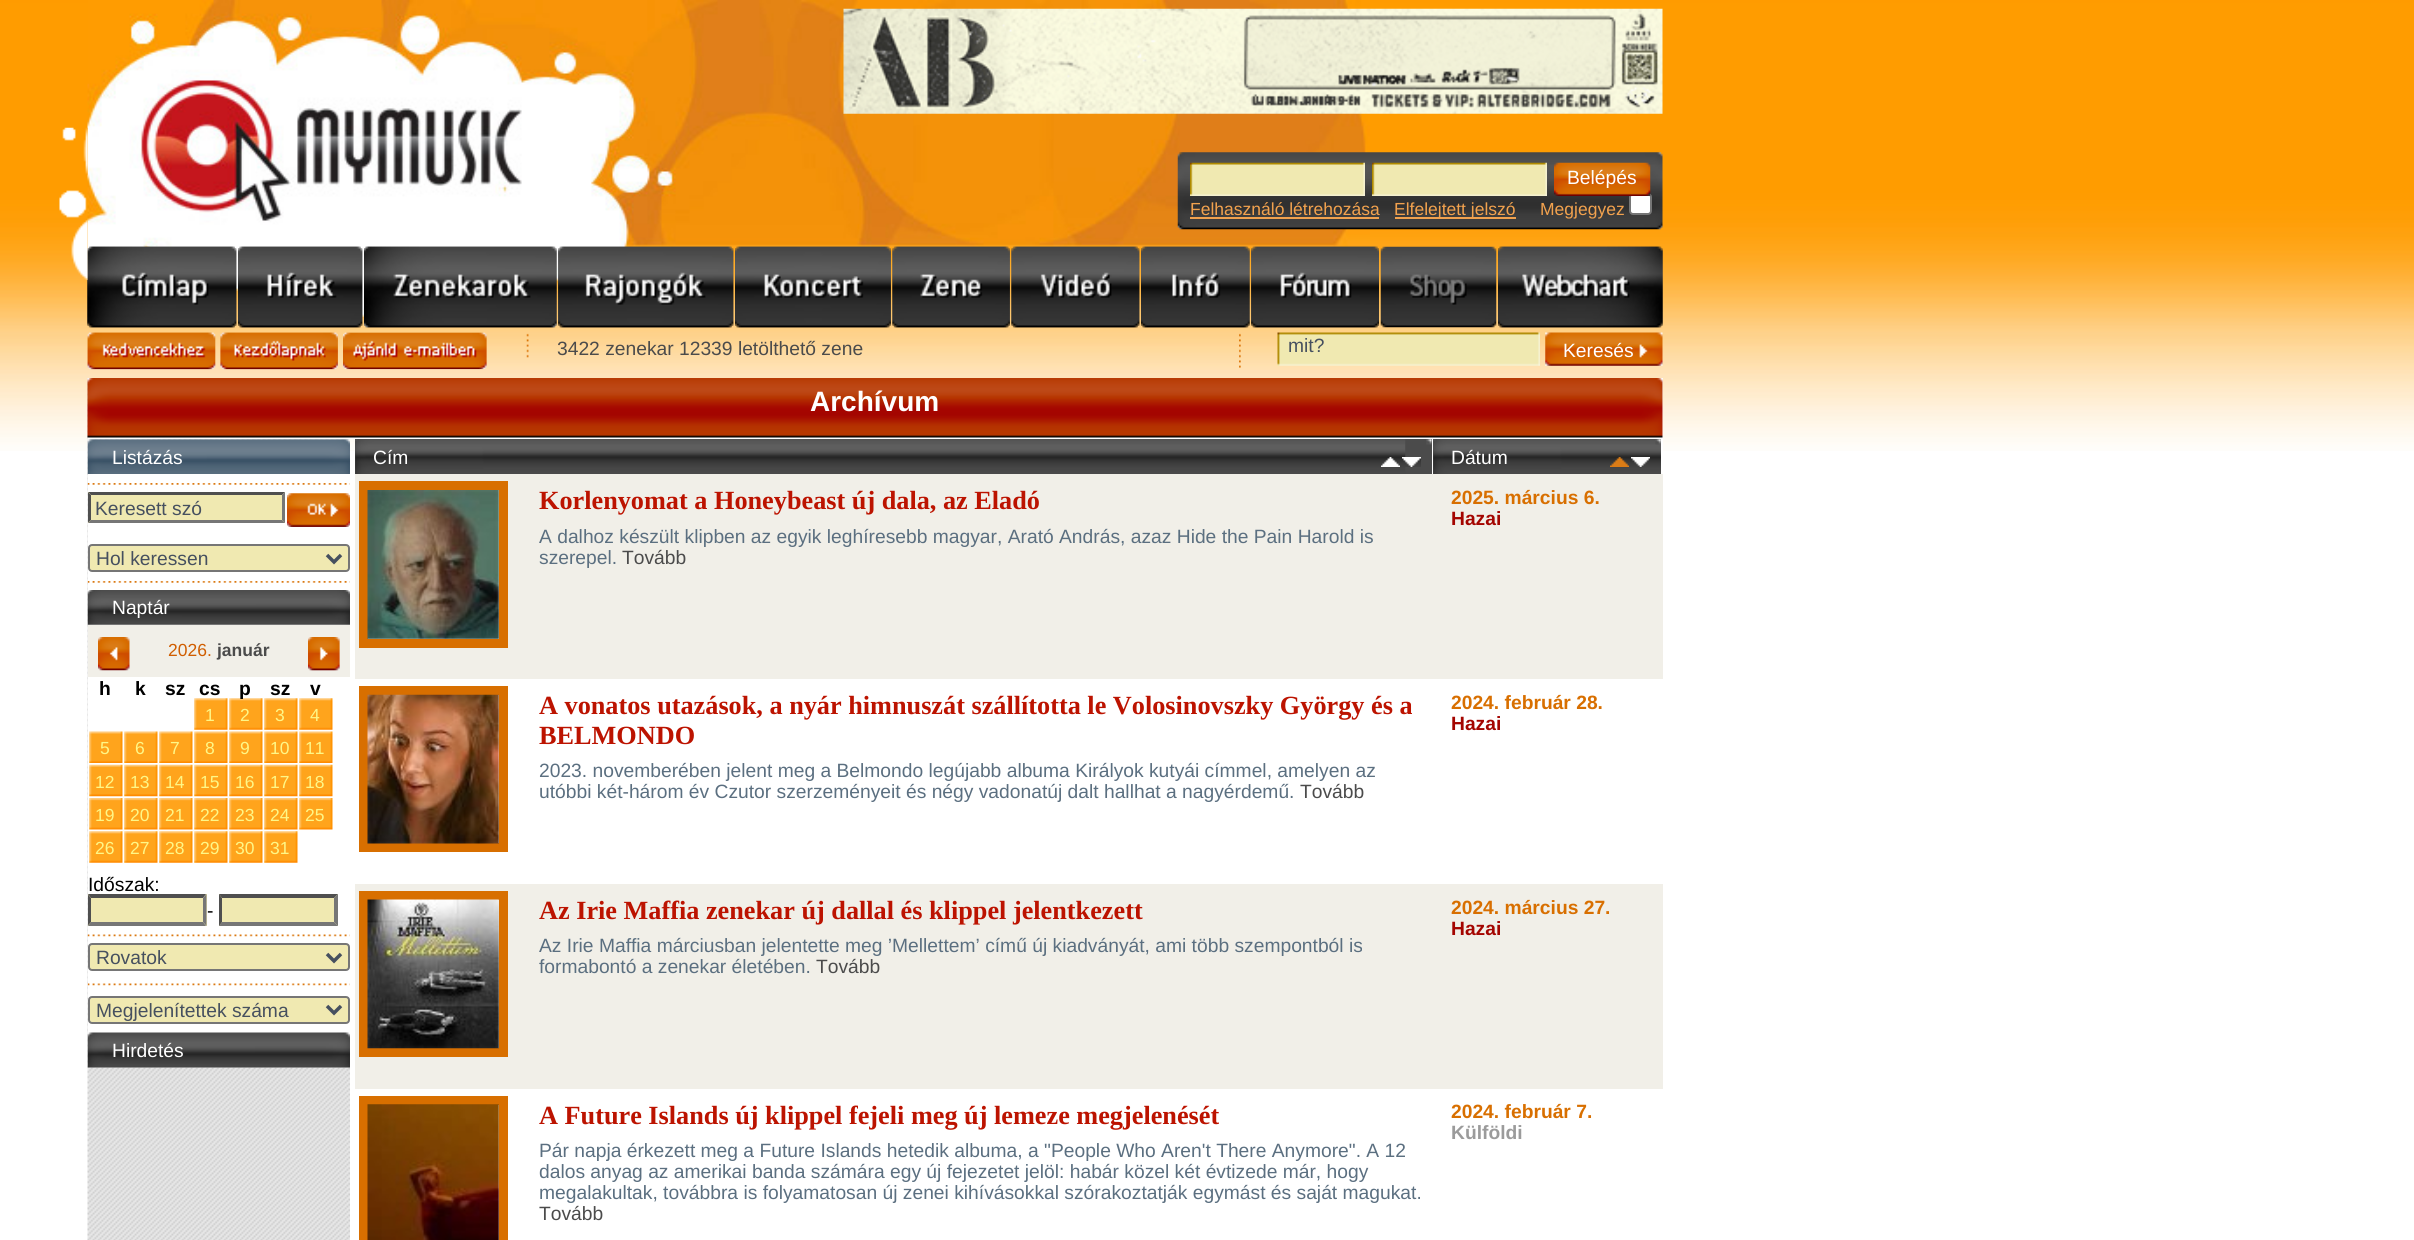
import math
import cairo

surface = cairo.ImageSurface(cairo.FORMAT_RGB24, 2414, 1240)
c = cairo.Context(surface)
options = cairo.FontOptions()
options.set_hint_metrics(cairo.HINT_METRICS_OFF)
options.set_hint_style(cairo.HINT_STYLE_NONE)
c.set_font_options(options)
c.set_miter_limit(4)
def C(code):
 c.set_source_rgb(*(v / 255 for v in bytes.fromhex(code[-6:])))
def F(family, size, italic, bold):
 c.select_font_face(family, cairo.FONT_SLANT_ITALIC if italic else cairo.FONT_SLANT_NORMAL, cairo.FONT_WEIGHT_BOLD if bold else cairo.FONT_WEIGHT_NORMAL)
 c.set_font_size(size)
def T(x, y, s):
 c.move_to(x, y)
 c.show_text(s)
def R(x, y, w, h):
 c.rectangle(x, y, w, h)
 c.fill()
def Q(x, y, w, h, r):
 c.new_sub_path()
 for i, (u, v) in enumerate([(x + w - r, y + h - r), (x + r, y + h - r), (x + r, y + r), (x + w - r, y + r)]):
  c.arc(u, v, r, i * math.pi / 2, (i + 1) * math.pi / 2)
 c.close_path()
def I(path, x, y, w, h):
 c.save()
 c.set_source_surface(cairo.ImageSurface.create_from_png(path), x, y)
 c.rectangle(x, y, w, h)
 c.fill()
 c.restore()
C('ffffff')
c.paint()
I('1.png',0,0,2414,451)
I('2.png',87,0,1283,317)
I('3.png',843,8,820,106)
I('8.png',87,246,150,82)
I('9.png',87,246,150,82)
I('4.png',59,127,29,153)
I('5.png',1177,152,486,78)
I('6.png',1190,162,175,34)
I('6.png',1372,162,175,34)
C('ffffff')
Q(1630,194,21,20,3)
c.fill_preserve()
C('767676')
c.stroke()
I('7.png',1554,162,97,34)
F('Liberation Sans',19.25,0,0)
C('ffffff')
T(1567,184,'Belépés')
F('Liberation Sans',17.5,0,0)
C('f2a24e')
T(1190,215,'Felhasználó létrehozása')
R(1190,217,189,2)
R(1395,217,121,2)
T(1394,215,'Elfelejtett jelszó')
T(1540,215,'Megjegyez')
I('10.png',238,246,125,82)
I('11.png',238,246,125,82)
I('12.png',364,246,193,82)
I('13.png',364,246,193,82)
I('14.png',558,246,176,82)
I('15.png',558,246,176,82)
I('16.png',735,246,156,82)
I('17.png',735,246,156,82)
I('18.png',892,246,118,82)
I('19.png',892,246,118,82)
I('20.png',1011,246,129,82)
I('21.png',1011,246,129,82)
I('22.png',1141,246,109,82)
I('23.png',1141,246,109,82)
I('24.png',1251,246,128,82)
I('25.png',1251,246,128,82)
I('26.png',1380,246,117,82)
I('27.png',1498,246,165,82)
I('28.png',1498,246,165,82)
I('29.png',87,332,129,38)
I('30.png',87,332,129,38)
I('31.png',220,332,118,38)
I('32.png',220,332,118,38)
I('33.png',343,332,144,38)
I('34.png',343,332,144,37)
I('35.png',526,333,3,25)
F('Liberation Sans',19.25,0,0)
C('4b4b4b')
T(557,355,'3422 zenekar 12339 letölthető zene')
I('36.png',1239,333,2,35)
I('37.png',1277,332,263,34)
C('46505f')
T(1288,352,'mit?')
I('38.png',1545,332,118,34)
C('ffffff')
T(1563,357,'Keresés')
I('39.png',87,378,263,862)
R(88,378,1575,61)
I('40.png',87,378,1576,60)
F('Liberation Sans',28,0,1)
T(810,411,'Archívum')
I('41.png',87,439,263,36)
F('Liberation Sans',19.25,0,0)
T(112,464,'Listázás')
R(88,624,262,249)
I('46.png',87,589,263,36)
R(88,474,262,116)
I('42.png',87,483,263,2)
C('f0e9b1')
R(88,492,197,31)
C('4f4f4f')
c.new_path()
c.move_to(88,492)
c.line_to(285,492)
c.line_to(282,495)
c.line_to(91,495)
c.close_path()
c.fill()
C('767676')
c.new_path()
c.move_to(285,492)
c.line_to(285,523)
c.line_to(282,520)
c.line_to(282,495)
c.close_path()
c.fill()
c.new_path()
c.move_to(285,523)
c.line_to(88,523)
c.line_to(91,520)
c.line_to(282,520)
c.close_path()
c.fill()
c.save()
c.rectangle(88,439,262,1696)
c.clip()
C('4f4f4f')
c.new_path()
c.move_to(87.5,523)
c.line_to(87.5,492)
c.line_to(91,495)
c.line_to(91,520)
c.close_path()
c.fill()
c.restore()
C('46505f')
T(95,515,'Keresett szó')
I('43.png',287,493,63,34)
I('44.png',287,493,63,34)
C('f0e9b1')
Q(89,545,260,26,3)
c.fill_preserve()
C('767676')
c.stroke()
c.new_path()
c.move_to(327,555)
c.line_to(334,562)
c.line_to(341,555)
C('46505f')
c.set_line_width(3.5)
c.stroke()
T(96,565,'Hol keressen')
I('45.png',87,581,263,2)
C('ffffff')
T(112,614,'Naptár')
C('f1efe8')
R(88,625,262,52)
I('47.png',98,637,32,34)
F('Liberation Sans',17.5,0,0)
C('d05d00')
T(168,656,'2026.')
F('Liberation Sans',17.5,0,1)
C('4b4b4b')
T(217,656,'január')
I('48.png',308,637,32,34)
I('49.png',310,638,30,33)
F('Liberation Sans',19.25,0,1)
C('000000')
T(99,695,'h')
T(135,695,'k')
T(165,695,'sz')
T(199,695,'cs')
I('50.png',229,698,34,32)
T(239,695,'p')
T(270,695,'sz')
T(310,695,'v')
I('50.png',194,698,34,32)
F('Liberation Sans',17.5,0,0)
C('fef787')
T(205,721,'1')
T(240,721,'2')
I('50.png',264,698,34,32)
T(275,721,'3')
I('50.png',299,698,34,32)
T(310,721,'4')
I('51.png',89,731,34,32)
T(100,754,'5')
I('51.png',124,731,34,32)
T(135,754,'6')
I('51.png',159,731,34,32)
T(170,754,'7')
I('51.png',194,731,34,32)
T(205,754,'8')
I('51.png',229,731,34,32)
T(240,754,'9')
I('51.png',264,731,34,32)
T(270,754,'10')
I('51.png',299,731,34,32)
T(305,754,'11')
I('52.png',89,764,34,33)
T(95,788,'12')
I('52.png',124,764,34,33)
T(130,788,'13')
I('52.png',159,764,34,33)
T(165,788,'14')
I('52.png',194,764,34,33)
T(200,788,'15')
I('52.png',229,764,34,33)
T(235,788,'16')
I('52.png',264,764,34,33)
T(270,788,'17')
I('52.png',299,764,34,33)
T(305,788,'18')
I('53.png',89,798,34,32)
T(95,821,'19')
I('53.png',124,798,34,32)
T(130,821,'20')
I('53.png',159,798,34,32)
T(165,821,'21')
I('53.png',194,798,34,32)
T(200,821,'22')
I('53.png',229,798,34,32)
T(235,821,'23')
I('53.png',264,798,34,32)
T(270,821,'24')
I('53.png',299,798,34,32)
T(305,821,'25')
I('50.png',89,831,34,32)
T(95,854,'26')
I('50.png',124,831,34,32)
T(130,854,'27')
I('50.png',159,831,34,32)
T(165,854,'28')
I('50.png',194,831,34,32)
T(200,854,'29')
I('50.png',229,831,34,32)
T(235,854,'30')
I('50.png',264,831,34,32)
T(270,854,'31')
C('ffffff')
R(88,873,262,160)
F('Liberation Sans',19.25,0,0)
C('000000')
T(88,891,'Időszak:')
C('f0e9b1')
R(88,894,119,32)
C('4f4f4f')
c.new_path()
c.move_to(88,894)
c.line_to(206,894)
c.line_to(203,898)
c.line_to(91,898)
c.close_path()
c.fill()
C('767676')
c.new_path()
c.move_to(206.5,894)
c.line_to(206.5,926)
c.line_to(203,922)
c.line_to(203,898)
c.close_path()
c.fill()
c.new_path()
c.move_to(206,926)
c.line_to(88,926)
c.line_to(91,922)
c.line_to(203,922)
c.close_path()
c.fill()
c.save()
c.rectangle(88,439,262,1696)
c.clip()
C('4f4f4f')
c.new_path()
c.move_to(87.5,926)
c.line_to(87.5,894)
c.line_to(91,898)
c.line_to(91,922)
c.close_path()
c.fill()
c.restore()
C('000000')
T(207,917,'-')
C('f0e9b1')
R(219,894,119,32)
C('4f4f4f')
c.new_path()
c.move_to(219,894)
c.line_to(338,894)
c.line_to(334,898)
c.line_to(222,898)
c.close_path()
c.fill()
C('767676')
c.new_path()
c.move_to(338,894)
c.line_to(338,926)
c.line_to(334,922)
c.line_to(334,898)
c.close_path()
c.fill()
c.new_path()
c.move_to(338,926)
c.line_to(219,926)
c.line_to(222,922)
c.line_to(334,922)
c.close_path()
c.fill()
C('4f4f4f')
c.new_path()
c.move_to(219,926)
c.line_to(219,894)
c.line_to(222,898)
c.line_to(222,922)
c.close_path()
c.fill()
I('54.png',87,934,263,3)
C('f0e9b1')
Q(89,944,260,26,3)
c.fill_preserve()
C('767676')
c.set_line_width(2)
c.stroke()
c.new_path()
c.move_to(327,954)
c.line_to(334,961)
c.line_to(341,954)
C('46505f')
c.set_line_width(3.5)
c.stroke()
T(96,964,'Rovatok')
I('55.png',87,983,263,3)
C('f0e9b1')
Q(89,997,260,26,3)
c.fill_preserve()
C('767676')
c.set_line_width(2)
c.stroke()
c.new_path()
c.move_to(327,1006)
c.line_to(334,1013)
c.line_to(341,1006)
C('46505f')
c.set_line_width(3.5)
c.stroke()
T(96,1017,'Megjelenítettek száma')
I('56.png',87,1032,263,36)
C('ffffff')
T(112,1057,'Hirdetés')
C('4b4b4b')
R(355,439,1077,35)
I('57.png',355,439,1051,35)
C('ffffff')
R(1432,439,1,12)
I('58.png',1426,439,6,6)
T(373,464,'Cím')
R(1381,457,19,10)
I('59.png',1381,457,19,9)
R(1402,457,19,10)
I('60.png',1402,458,19,9)
C('4b4b4b')
R(1433,439,228,35)
I('61.png',1433,439,228,35)
C('ffffff')
R(1661,439,2,12)
I('62.png',1655,439,6,6)
T(1451,464,'Dátum')
C('db7c16')
R(1610,457,19,10)
I('63.png',1610,457,19,9)
C('ffffff')
R(1631,457,19,10)
I('64.png',1631,458,19,9)
C('f1efe8')
R(355,474,1308,205)
c.rectangle(363.5,485.5,140,158)
C('d86f00')
c.set_line_width(9)
c.stroke()
I('65.png',367,490,132,149)
F('Liberation Serif',26.25,0,1)
C('bc1300')
T(539,509,'Korlenyomat a Honeybeast új dala, az Eladó')
F('Liberation Sans',19.25,0,0)
C('5b6f80')
T(539,543,'A dalhoz készült klipben az egyik leghíresebb magyar, Arató András, azaz Hide the Pain Harold is')
T(539,564,'szerepel.')
C('4b4b4b')
T(622,564,'Tovább')
F('Liberation Sans',19.25,0,1)
C('d86f00')
T(1451,504,'2025. március 6.')
C('a40500')
T(1451,525,'Hazai')
c.rectangle(363.5,690.5,140,157)
C('d86f00')
c.stroke()
I('66.png',367,694,132,150)
F('Liberation Serif',26.25,0,1)
C('bc1300')
T(539,714,'A vonatos utazások, a nyár himnuszát szállította le Volosinovszky György és a')
T(539,744,'BELMONDO')
F('Liberation Sans',19.25,0,0)
C('5b6f80')
T(539,777,'2023. novemberében jelent meg a Belmondo legújabb albuma Királyok kutyái címmel, amelyen az')
T(539,798,'utóbbi két-három év Czutor szerzeményeit és négy vadonatúj dalt hallhat a nagyérdemű.')
C('4b4b4b')
T(1300,798,'Tovább')
F('Liberation Sans',19.25,0,1)
C('d86f00')
T(1451,709,'2024. február 28.')
C('a40500')
T(1451,730,'Hazai')
C('f1efe8')
R(355,884,1308,205)
c.rectangle(363.5,895.5,140,157)
C('d86f00')
c.stroke()
I('67.png',367,899,132,150)
F('Liberation Serif',26.25,0,1)
C('bc1300')
T(539,919,'Az Irie Maffia zenekar új dallal és klippel jelentkezett')
F('Liberation Sans',19.25,0,0)
C('5b6f80')
T(539,952,'Az Irie Maffia márciusban jelentette meg ’Mellettem’ című új kiadványát, ami több szempontból is')
T(539,973,'formabontó a zenekar életében.')
C('4b4b4b')
T(816,973,'Tovább')
F('Liberation Sans',19.25,0,1)
C('d86f00')
T(1451,914,'2024. március 27.')
C('a40500')
T(1451,935,'Hazai')
c.rectangle(363.5,1100.5,140,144)
C('d86f00')
c.stroke()
I('68.png',367,1104,132,136)
F('Liberation Serif',26.25,0,1)
C('bc1300')
T(539,1124,'A Future Islands új klippel fejeli meg új lemeze megjelenését')
F('Liberation Sans',19.25,0,0)
C('5b6f80')
T(539,1157,'Pár napja érkezett meg a Future Islands hetedik albuma, a "People Who Aren\'t There Anymore". A 12')
T(539,1178,'dalos anyag az amerikai banda számára egy új fejezetet jelöl: habár közel két évtizede már, hogy')
T(539,1199,'megalakultak, továbbra is folyamatosan új zenei kihívásokkal szórakoztatják egymást és saját magukat.')
C('4b4b4b')
T(539,1220,'Tovább')
F('Liberation Sans',19.25,0,1)
C('d86f00')
T(1451,1118,'2024. február 7.')
C('9b9b9b')
T(1451,1139,'Külföldi')
surface.write_to_png('o.png')
